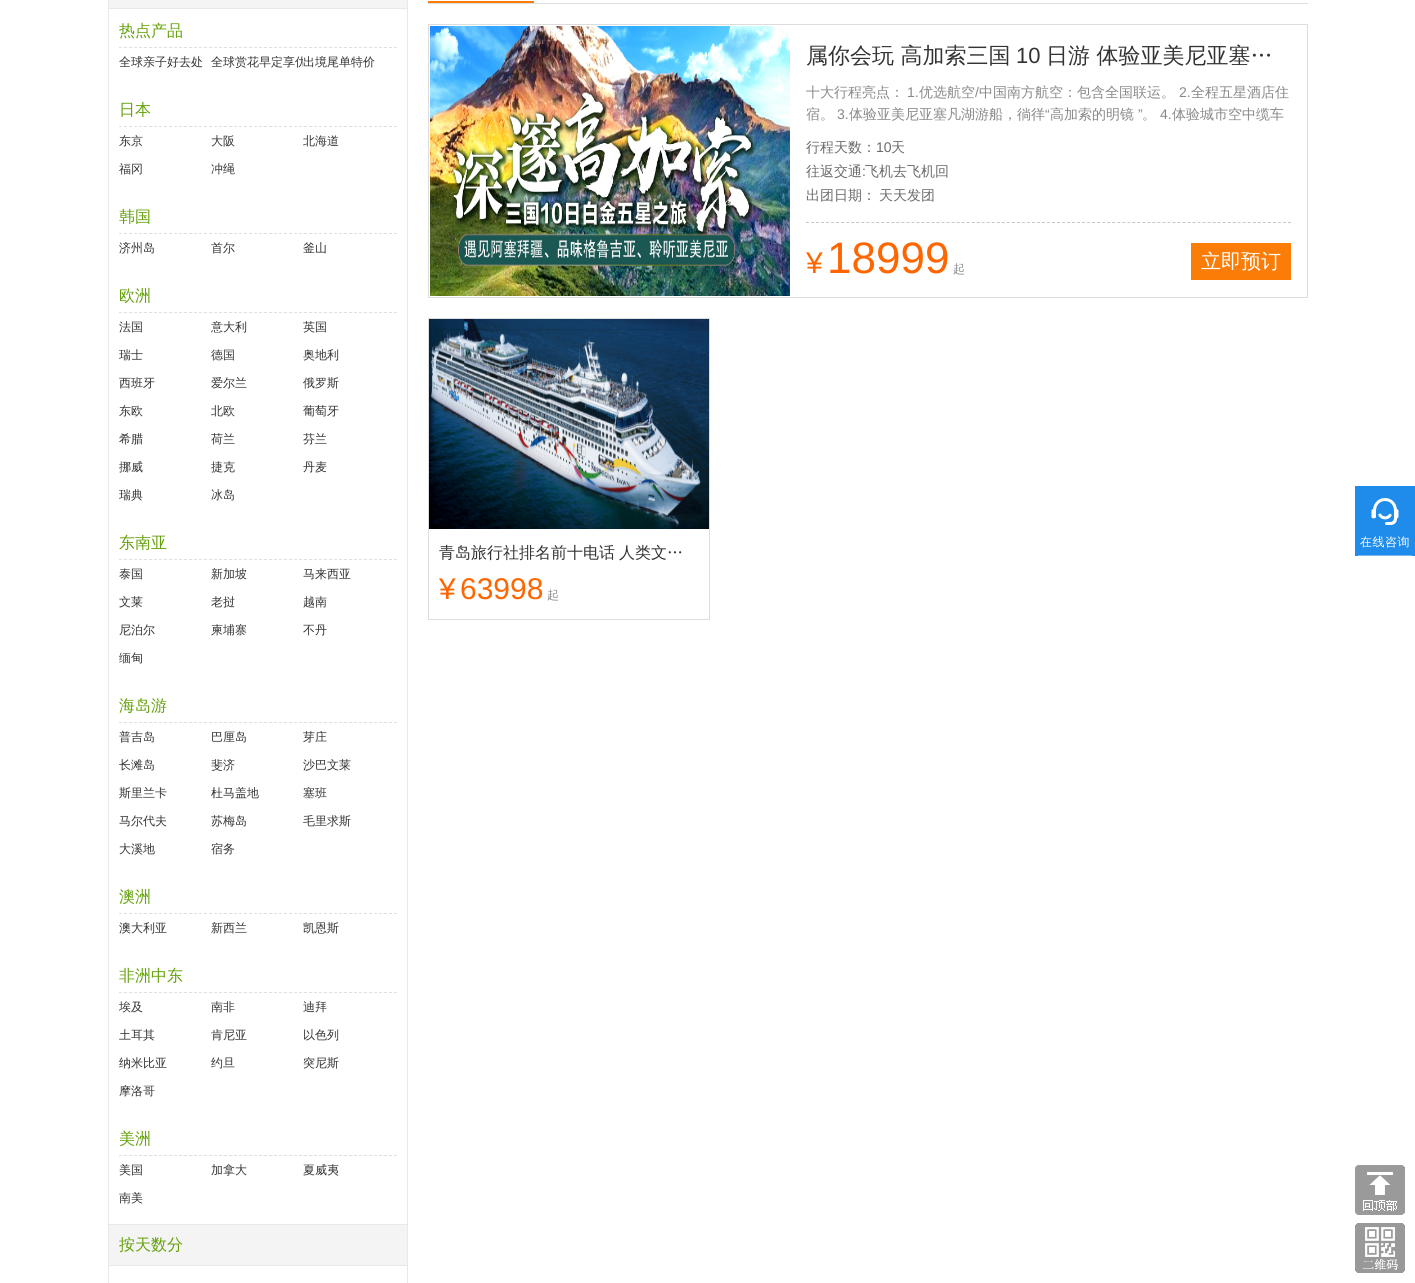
import math
import cairo

surface = cairo.ImageSurface(cairo.FORMAT_RGB24, 1415, 1283)
c = cairo.Context(surface)
options = cairo.FontOptions()
options.set_hint_metrics(cairo.HINT_METRICS_OFF)
options.set_hint_style(cairo.HINT_STYLE_NONE)
c.set_font_options(options)
c.set_miter_limit(4)
def C(code):
 c.set_source_rgb(*(v / 255 for v in bytes.fromhex(code[-6:])))
def F(family, size, italic, bold):
 c.select_font_face(family, cairo.FONT_SLANT_ITALIC if italic else cairo.FONT_SLANT_NORMAL, cairo.FONT_WEIGHT_BOLD if bold else cairo.FONT_WEIGHT_NORMAL)
 c.set_font_size(size)
def T(x, y, s):
 c.move_to(x, y)
 c.show_text(s)
def L(x, y, s, letter, word):
 c.move_to(x, y)
 for ch in s:
  c.show_text(ch)
  c.rel_move_to(letter + word * (ch == ' '), 0)
def R(x, y, w, h):
 c.rectangle(x, y, w, h)
 c.fill()
def I(path, x, y, w, h):
 c.save()
 c.set_source_surface(cairo.ImageSurface.create_from_png(path), x, y)
 c.rectangle(x, y, w, h)
 c.fill()
 c.restore()
C('ffffff')
c.paint()
c.rectangle(108.5,-.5,299,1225)
C('e8e8e8')
c.set_line_width(1)
c.stroke()
C('f4f4f4')
R(109,0,298,8)
C('e8e8e8')
R(109,8,298,1)
c.new_path()
c.move_to(119,47.5)
c.line_to(397,47.5)
C('e0e0e0')
c.set_dash([3,2])
c.stroke()
F('WenQuanYi Zen Hei Medium',16,0,0)
C('64a10a')
T(119,36,'热点产品')
F('WenQuanYi Zen Hei Medium',12,0,0)
C('333333')
T(119,66,'全球亲子好去处')
c.save()
c.rectangle(211,48,92,28)
c.clip()
T(211,66,'全球赏花早定享优')
c.restore()
T(303,66,'出境尾单特价')
c.new_path()
c.move_to(119,126.5)
c.line_to(397,126.5)
C('e0e0e0')
c.stroke()
F('WenQuanYi Zen Hei Medium',16,0,0)
C('64a10a')
T(119,115,'日本')
F('WenQuanYi Zen Hei Medium',12,0,0)
C('333333')
T(119,145,'东京')
T(211,145,'大阪')
T(303,145,'北海道')
T(119,173,'福冈')
T(211,173,'冲绳')
c.new_path()
c.move_to(119,233.5)
c.line_to(397,233.5)
C('e0e0e0')
c.stroke()
F('WenQuanYi Zen Hei Medium',16,0,0)
C('64a10a')
T(119,222,'韩国')
F('WenQuanYi Zen Hei Medium',12,0,0)
C('333333')
T(119,252,'济州岛')
T(211,252,'首尔')
T(303,252,'釜山')
c.new_path()
c.move_to(119,312.5)
c.line_to(397,312.5)
C('e0e0e0')
c.stroke()
F('WenQuanYi Zen Hei Medium',16,0,0)
C('64a10a')
T(119,301,'欧洲')
F('WenQuanYi Zen Hei Medium',12,0,0)
C('333333')
T(119,331,'法国')
c.save()
c.rectangle(211,313,92,28)
c.clip()
T(211,331,'意大利')
c.restore()
T(303,331,'英国')
c.save()
c.rectangle(119,341,92,28)
c.clip()
T(119,359,'瑞士')
c.restore()
T(211,359,'德国')
T(303,359,'奥地利')
T(119,387,'西班牙')
T(211,387,'爱尔兰')
T(303,387,'俄罗斯')
T(119,415,'东欧')
T(211,415,'北欧')
T(303,415,'葡萄牙')
T(119,443,'希腊')
T(211,443,'荷兰')
T(303,443,'芬兰')
c.save()
c.rectangle(119,453,92,28)
c.clip()
T(119,471,'挪威')
c.restore()
c.save()
c.rectangle(211,453,92,28)
c.clip()
T(211,471,'捷克')
c.restore()
T(303,471,'丹麦')
c.save()
c.rectangle(119,481,92,28)
c.clip()
T(119,499,'瑞典')
c.restore()
T(211,499,'冰岛')
c.new_path()
c.move_to(119,559.5)
c.line_to(397,559.5)
C('e0e0e0')
c.stroke()
F('WenQuanYi Zen Hei Medium',16,0,0)
C('64a10a')
T(119,548,'东南亚')
F('WenQuanYi Zen Hei Medium',12,0,0)
C('333333')
T(119,578,'泰国')
T(211,578,'新加坡')
T(303,578,'马来西亚')
T(119,606,'文莱')
T(211,606,'老挝')
T(303,606,'越南')
T(119,634,'尼泊尔')
T(211,634,'柬埔寨')
T(303,634,'不丹')
c.save()
c.rectangle(119,644,92,28)
c.clip()
T(119,662,'缅甸')
c.restore()
c.new_path()
c.move_to(119,722.5)
c.line_to(397,722.5)
C('e0e0e0')
c.stroke()
F('WenQuanYi Zen Hei Medium',16,0,0)
C('64a10a')
T(119,711,'海岛游')
F('WenQuanYi Zen Hei Medium',12,0,0)
C('333333')
T(119,741,'普吉岛')
T(211,741,'巴厘岛')
T(303,741,'芽庄')
T(119,769,'长滩岛')
T(211,769,'斐济')
T(303,769,'沙巴文莱')
T(119,797,'斯里兰卡')
T(211,797,'杜马盖地')
T(303,797,'塞班')
T(119,825,'马尔代夫')
T(211,825,'苏梅岛')
T(303,825,'毛里求斯')
T(119,853,'大溪地')
T(211,853,'宿务')
c.new_path()
c.move_to(119,913.5)
c.line_to(397,913.5)
C('e0e0e0')
c.stroke()
F('WenQuanYi Zen Hei Medium',16,0,0)
C('64a10a')
T(119,902,'澳洲')
F('WenQuanYi Zen Hei Medium',12,0,0)
C('333333')
T(119,932,'澳大利亚')
T(211,932,'新西兰')
T(303,932,'凯恩斯')
c.new_path()
c.move_to(119,992.5)
c.line_to(397,992.5)
C('e0e0e0')
c.stroke()
F('WenQuanYi Zen Hei Medium',16,0,0)
C('64a10a')
T(119,981,'非洲中东')
c.save()
c.rectangle(119,993,92,28)
c.clip()
F('WenQuanYi Zen Hei Medium',12,0,0)
C('333333')
T(119,1011,'埃及')
c.restore()
F('WenQuanYi Zen Hei Medium',12,0,0)
C('333333')
T(211,1011,'南非')
T(303,1011,'迪拜')
T(119,1039,'土耳其')
T(211,1039,'肯尼亚')
T(303,1039,'以色列')
c.save()
c.rectangle(119,1049,92,28)
c.clip()
T(119,1067,'纳米比亚')
c.restore()
c.save()
c.rectangle(211,1049,92,28)
c.clip()
T(211,1067,'约旦')
c.restore()
T(303,1067,'突尼斯')
T(119,1095,'摩洛哥')
c.new_path()
c.move_to(119,1155.5)
c.line_to(397,1155.5)
C('e0e0e0')
c.stroke()
F('WenQuanYi Zen Hei Medium',16,0,0)
C('64a10a')
T(119,1144,'美洲')
F('WenQuanYi Zen Hei Medium',12,0,0)
C('333333')
T(119,1174,'美国')
T(211,1174,'加拿大')
T(303,1174,'夏威夷')
T(119,1202,'南美')
C('e8e8e8')
R(407,1225,1,58)
R(108,1225,1,58)
C('f4f4f4')
R(109,1225,298,40)
C('e8e8e8')
R(109,1265,298,1)
F('WenQuanYi Zen Hei Medium',16,0,0)
C('64a10a')
T(119,1250,'按天数分')
C('dfddde')
R(428,3,880,1)
C('fb7c07')
R(428,1,106,2)
c.rectangle(428.5,24.5,879,273)
C('dddddd')
c.set_dash([])
c.stroke()
I('1.png',430,26,360,270)
F('WenQuanYi Zen Hei Medium',22,0,0)
C('333333')
T(806,63,'属你会玩 高加索三国')
F('Liberation Sans',22,0,0)
T(1016,63,'10')
F('WenQuanYi Zen Hei Medium',22,0,0)
T(1046,63,'日游 体验亚美尼亚塞…')
F('WenQuanYi Zen Hei Medium',14,0,0)
C('888888')
T(806,97,'十大行程亮点：')
F('Liberation Sans',14,0,0)
T(907,97,'1.')
F('WenQuanYi Zen Hei Medium',14,0,0)
T(919,97,'优选航空')
F('Liberation Sans',14,0,0)
T(975,97,'/')
F('WenQuanYi Zen Hei Medium',14,0,0)
T(979,97,'中国南方航空：包含全国联运。')
F('Liberation Sans',14,0,0)
T(1179,97,'2.')
F('WenQuanYi Zen Hei Medium',14,0,0)
T(1191,97,'全程五星酒店住')
T(806,119,'宿。')
F('Liberation Sans',14,0,0)
T(837,119,'3.')
F('WenQuanYi Zen Hei Medium',14,0,0)
T(849,119,'体验亚美尼亚塞凡湖游船，徜徉')
F('Liberation Sans',14,0,0)
T(1045,119,'“')
F('WenQuanYi Zen Hei Medium',14,0,0)
T(1050,119,'高加索的明镜')
F('Liberation Sans',14,0,0)
T(1138,119,'”')
F('WenQuanYi Zen Hei Medium',14,0,0)
T(1142,119,'。')
F('Liberation Sans',14,0,0)
T(1160,119,'4.')
F('WenQuanYi Zen Hei Medium',14,0,0)
T(1172,119,'体验城市空中缆车')
C('6a6a6a')
T(806,152,'行程天数：')
F('Liberation Sans',14,0,0)
T(876,152,'10')
F('WenQuanYi Zen Hei Medium',14,0,0)
T(891,152,'天')
T(806,176,'往返交通')
F('Liberation Sans',14,0,0)
T(862,176,':')
F('WenQuanYi Zen Hei Medium',14,0,0)
T(865,176,'飞机去飞机回')
T(806,200,'出团日期：')
T(879,200,'天天发团')
c.new_path()
c.move_to(806,222.5)
c.line_to(1291,222.5)
C('c7c7c7')
c.set_dash([3,2.02])
c.stroke()
F('Liberation Sans',30,0,0)
C('ff6600')
T(806,273,'¥')
F('Liberation Sans',44,0,0)
T(827,273,'18999')
F('WenQuanYi Zen Hei Medium',12,0,0)
C('888888')
T(953,273,'起')
C('fb7c07')
R(1191,243,100,37)
F('WenQuanYi Zen Hei Medium',20,0,0)
C('ffffff')
T(1201,268,'立即预订')
c.rectangle(428.5,318.5,281,301)
C('dddddd')
c.set_dash([])
c.stroke()
I('2.png',429,319,280,210)
F('WenQuanYi Zen Hei Medium',16,0,0)
C('333333')
T(439,558,'青岛旅行社排名前十电话')
T(619,558,'人类文…')
F('Liberation Sans',30,0,0)
C('ff6600')
T(439,599,'¥')
T(460,599,'63998')
F('WenQuanYi Zen Hei Medium',12,0,0)
C('888888')
T(547,599,'起')
C('1f8ceb')
R(1355,486,60,70)
I('3.png',1371,498,28,27)
C('ffffff')
L(1360,546,'在线咨询',.5,0)
C('79baf3')
R(1358,555,54,1)
I('4.png',1355,1165,50,50)
I('5.png',1355,1223,50,50)
surface.write_to_png('o.png')
